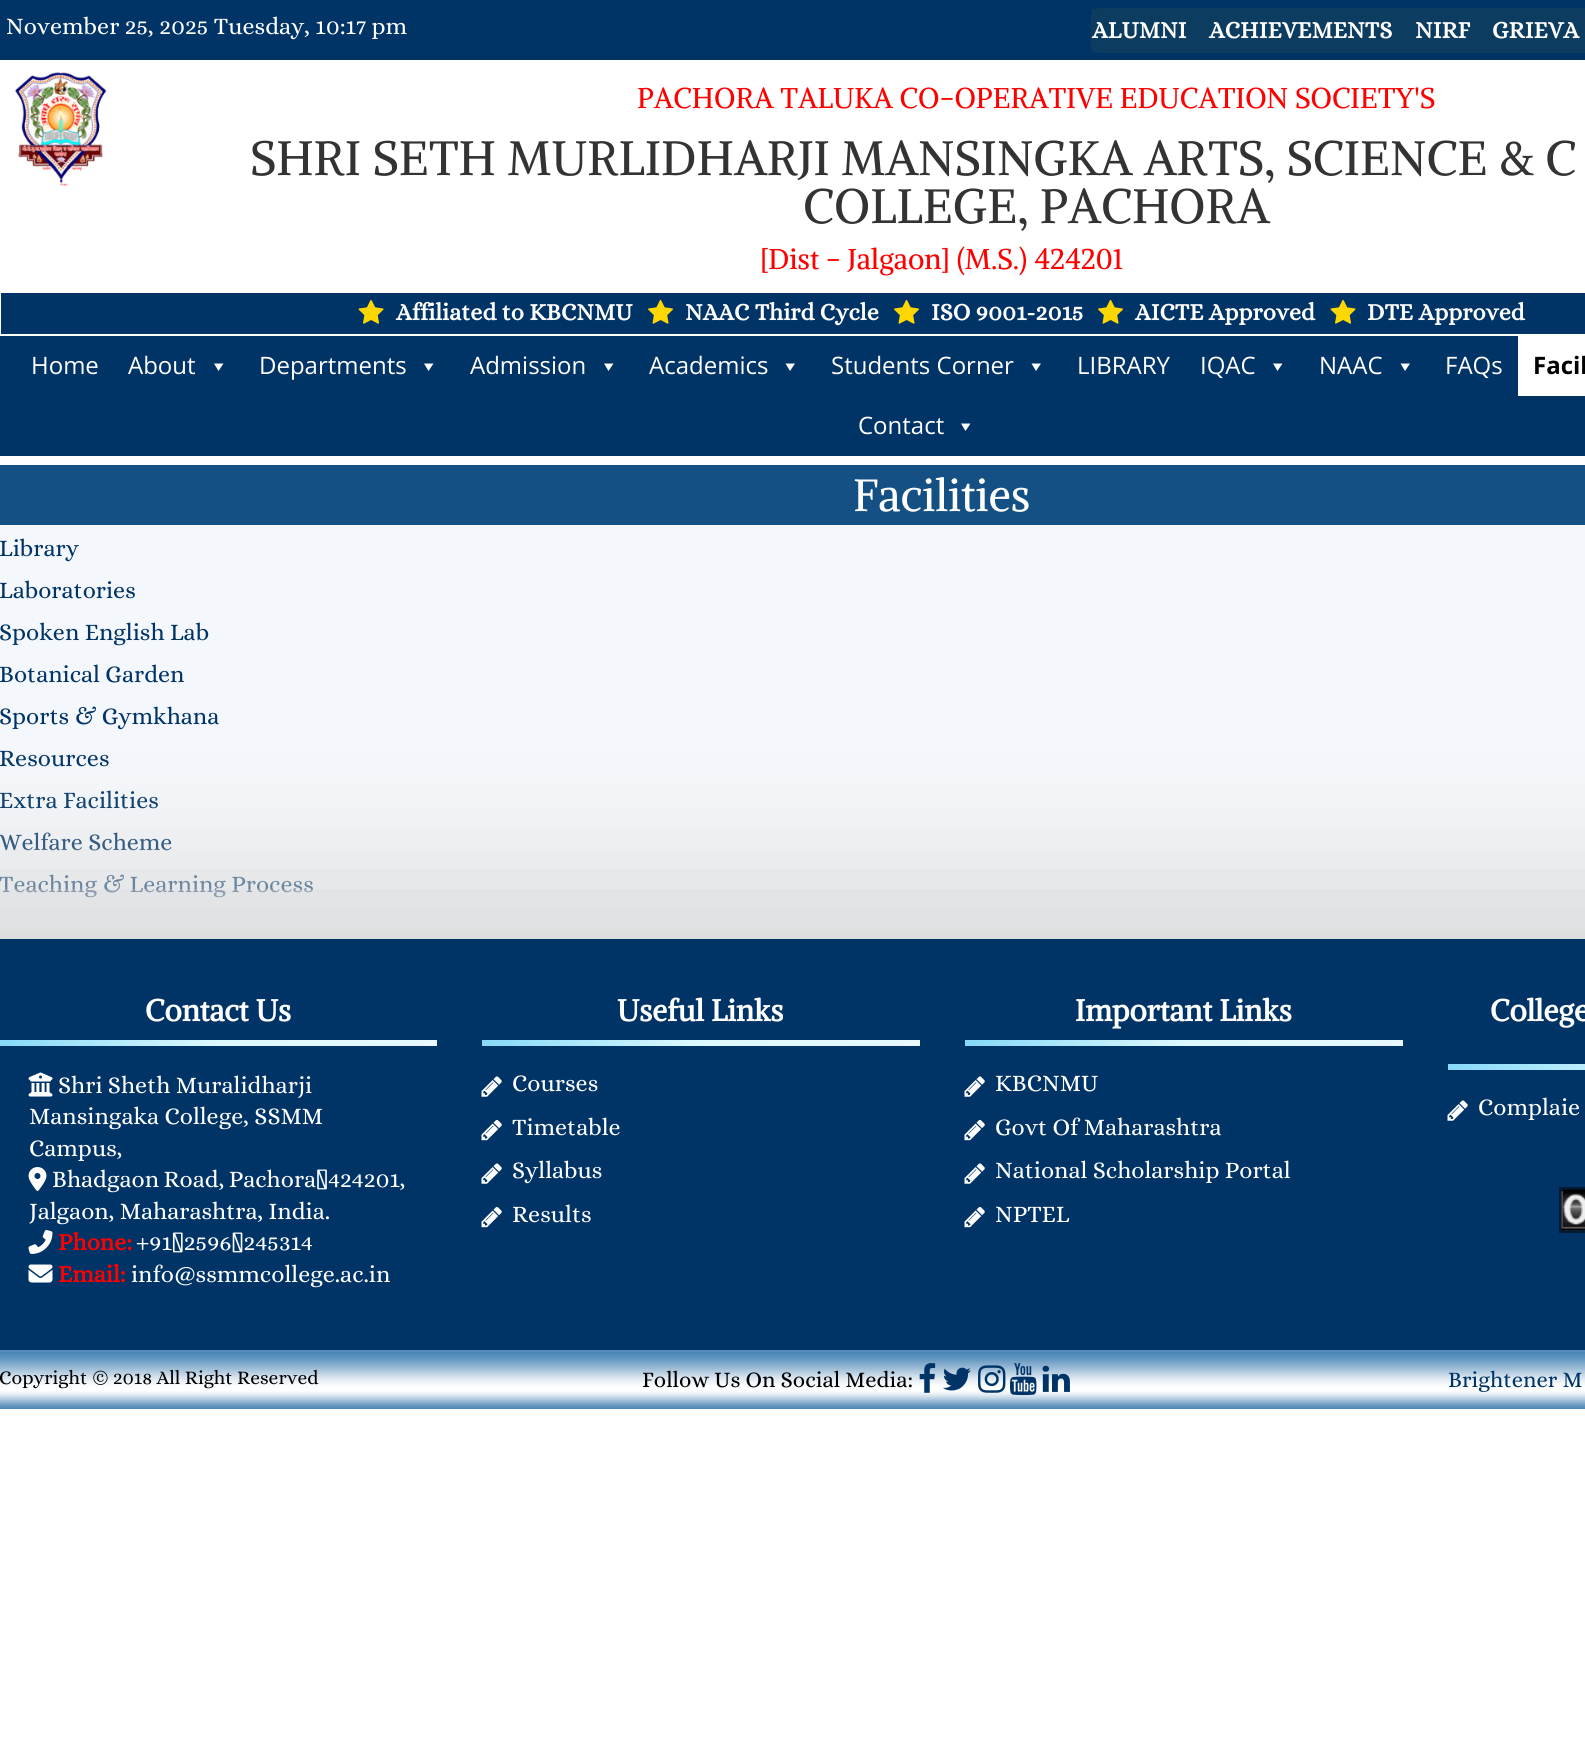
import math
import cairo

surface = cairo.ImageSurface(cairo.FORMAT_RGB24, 1585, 1762)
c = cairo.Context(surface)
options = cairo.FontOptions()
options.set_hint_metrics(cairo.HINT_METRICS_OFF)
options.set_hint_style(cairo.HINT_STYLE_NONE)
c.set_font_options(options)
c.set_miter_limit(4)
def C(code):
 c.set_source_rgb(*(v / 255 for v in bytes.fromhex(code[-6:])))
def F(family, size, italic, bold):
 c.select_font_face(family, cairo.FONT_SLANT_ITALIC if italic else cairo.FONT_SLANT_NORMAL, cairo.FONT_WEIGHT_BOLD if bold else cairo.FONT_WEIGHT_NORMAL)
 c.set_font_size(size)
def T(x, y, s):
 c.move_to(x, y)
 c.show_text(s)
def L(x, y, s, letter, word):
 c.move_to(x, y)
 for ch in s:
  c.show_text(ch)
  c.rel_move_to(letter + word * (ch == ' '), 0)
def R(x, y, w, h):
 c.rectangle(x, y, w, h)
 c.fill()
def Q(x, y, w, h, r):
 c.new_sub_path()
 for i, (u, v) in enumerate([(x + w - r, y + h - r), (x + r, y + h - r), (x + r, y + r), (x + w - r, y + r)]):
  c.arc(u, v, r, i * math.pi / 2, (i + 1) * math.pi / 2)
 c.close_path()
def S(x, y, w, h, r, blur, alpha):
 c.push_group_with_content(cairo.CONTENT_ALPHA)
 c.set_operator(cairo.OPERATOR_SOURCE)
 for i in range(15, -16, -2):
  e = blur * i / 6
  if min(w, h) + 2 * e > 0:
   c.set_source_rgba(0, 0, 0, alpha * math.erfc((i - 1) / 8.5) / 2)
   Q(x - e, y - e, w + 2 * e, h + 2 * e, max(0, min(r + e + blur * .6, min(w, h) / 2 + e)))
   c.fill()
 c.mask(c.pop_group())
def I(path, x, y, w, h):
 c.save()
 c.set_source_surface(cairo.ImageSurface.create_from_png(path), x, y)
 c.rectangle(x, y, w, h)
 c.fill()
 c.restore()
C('ffffff')
c.paint()
C('003366')
R(0,0,1585,60)
F('Alice',24,0,0)
C('ffffff')
T(6,34,'November 25, 2025 Tuesday, 10:17 pm')
C('0c3c60')
c.new_path()
c.move_to(1099,8)
c.line_to(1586,8)
c.line_to(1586,53)
c.line_to(1099,53)
c.curve_to(1094.5,53,1091,49.5,1091,45)
c.line_to(1091,16)
c.curve_to(1091,11.5,1094.5,8,1099,8)
c.close_path()
c.fill()
R(1092,9,3,42)
F('Alice',24,0,1)
C('ffffff')
T(1092,38,'ALUMNI')
T(1209,38,'ACHIEVEMENTS')
T(1415,38,'NIRF')
T(1492,38,'GRIEVA')
I('1.png',15,72,92,115)
F('Alike',28.5,0,0)
C('ff0000')
T(637,108,'PACHORA TALUKA CO-OPERATIVE EDUCATION SOCIETY\'S')
F('Alike',48,0,0)
C('333333')
T(250,175,'SHRI SETH MURLIDHARJI MANSINGKA ARTS, SCIENCE & C')
T(803,223,'COLLEGE, PACHORA')
F('Alike',28.5,0,0)
C('ff0000')
T(760,269,'[Dist - Jalgaon] (M.S.) 424201')
C('003366')
R(1,293,1584,41)
I('2.png',358,299,26,25)
F('Alice',24,0,1)
C('ffffff')
T(396,320,'Affiliated to KBCNMU')
I('3.png',648,299,25,25)
T(685,320,'NAAC Third Cycle')
I('3.png',894,299,25,25)
T(931,320,'ISO 9001-2015')
I('3.png',1098,299,25,25)
T(1135,320,'AICTE Approved')
I('2.png',1330,299,26,25)
T(1367,320,'DTE Approved')
C('003366')
R(0,336,1585,120)
F('Open Sans',24,0,0)
C('ffffff')
T(31,374,'Home')
T(128,374,'About')
c.new_path()
c.move_to(223.5,363.5)
c.line_to(218.5,371)
c.line_to(214,363.5)
c.close_path()
c.fill()
T(259,374,'Departments')
c.new_path()
c.move_to(433.5,363.5)
c.line_to(428.5,371)
c.line_to(424,363.5)
c.close_path()
c.fill()
T(470,374,'Admission')
c.new_path()
c.move_to(613.5,363.5)
c.line_to(608.5,371)
c.line_to(604,363.5)
c.close_path()
c.fill()
T(649,374,'Academics')
c.new_path()
c.move_to(795,363.5)
c.line_to(790,371)
c.line_to(785.5,363.5)
c.close_path()
c.fill()
T(831,374,'Students Corner')
c.new_path()
c.move_to(1041,363.5)
c.line_to(1036,371)
c.line_to(1031.5,363.5)
c.close_path()
c.fill()
T(1077,374,'LIBRARY')
T(1200,374,'IQAC')
c.new_path()
c.move_to(1282.5,363.5)
c.line_to(1277.5,371)
c.line_to(1273,363.5)
c.close_path()
c.fill()
T(1319,374,'NAAC')
c.new_path()
c.move_to(1410,363.5)
c.line_to(1405,371)
c.line_to(1400.5,363.5)
c.close_path()
c.fill()
T(1445,374,'FAQs')
R(1518,336,67,60)
F('Open Sans',24,0,1)
C('000000')
T(1533,374,'Facil')
F('Open Sans',24,0,0)
C('ffffff')
T(858,434,'Contact')
c.new_path()
c.move_to(970.5,423.5)
c.line_to(965.5,431)
c.line_to(961,423.5)
c.close_path()
c.fill()
C('155085')
R(0,465,1585,60)
F('Alike',45,0,0)
C('ffffff')
T(853,511,'Facilities')
C('f4f7fb')
R(0,525,1585,414)
F('Alice',24,0,0)
C('003366')
T(-1,556,'Library')
T(-1,598,'Laboratories')
T(-1,640,'Spoken English Lab')
T(-1,682,'Botanical Garden')
T(-1,724,'Sports & Gymkhana')
T(-1,766,'Resources')
T(-1,808,'Extra Facilities')
T(-1,850,'Welfare Scheme')
T(-1,892,'Teaching & Learning Process')
c.save()
c.rectangle(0,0,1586,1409)
c.clip()
C('d9d9d9')
S(-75,879,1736,561,0,60,1)
c.restore()
R(0,939,1585,411)
F('Alike',30,0,1)
C('ffffff')
T(145,1021,'Contact Us')
gradient = cairo.LinearGradient(-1.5,1043,437,1043)
gradient.add_color_stop_rgba(0,0.522,0.851,0.973,1)
gradient.add_color_stop_rgba(.5,0.867,0.976,1,1)
gradient.add_color_stop_rgba(1,0.91,0.976,1,1)
c.set_source(gradient)
R(0,1040,437,6)
I('4.png',28,1072,25,25)
F('Alice',24,0,0)
C('ffffff')
T(58,1093,'Shri Sheth Muralidharji')
T(29,1124,'Mansingaka College, SSMM')
T(29,1156,'Campus,')
I('5.png',28,1167,19,24)
L(52,1187,'Bhadgaon Road, Pachora‑424201,',0,-1)
T(29,1219,'Jalgaon, Maharashtra, India.')
I('6.png',28,1230,25,24)
F('Alice',24,0,1)
C('ff0000')
T(58,1250,'Phone:')
F('Alice',24,0,0)
C('ffffff')
T(136,1250,'+91‑2596‑245314')
I('7.png',28,1264,25,19)
F('Alice',24,0,1)
C('ff0000')
T(58,1282,'Email:')
F('Alice',24,0,0)
C('ffffff')
T(131,1282,'info@ssmmcollege.ac.in')
F('Alike',30,0,1)
T(617,1021,'Useful Links')
gradient = cairo.LinearGradient(482,1043,920,1043)
gradient.add_color_stop_rgba(0,0.522,0.851,0.973,1)
gradient.add_color_stop_rgba(.5,0.867,0.976,1,1)
gradient.add_color_stop_rgba(1,0.91,0.976,1,1)
c.set_source(gradient)
R(482,1040,438,6)
I('8.png',481,1076,21,21)
F('Alice',24,0,0)
C('ffffff')
T(512,1091,'Courses')
I('9.png',481,1120,21,21)
T(512,1135,'Timetable')
I('8.png',481,1163,21,21)
T(512,1178,'Syllabus')
I('9.png',481,1207,21,21)
T(512,1222,'Results')
F('Alike',30,0,1)
T(1075,1021,'Important Links')
gradient = cairo.LinearGradient(965,1043,1403,1043)
gradient.add_color_stop_rgba(0,0.522,0.851,0.973,1)
gradient.add_color_stop_rgba(.5,0.867,0.976,1,1)
gradient.add_color_stop_rgba(1,0.91,0.976,1,1)
c.set_source(gradient)
R(965,1040,438,6)
I('8.png',964,1076,21,21)
F('Alice',24,0,0)
C('ffffff')
T(995,1091,'KBCNMU')
I('9.png',964,1120,21,21)
T(995,1135,'Govt Of Maharashtra')
I('8.png',964,1163,21,21)
T(995,1178,'National Scholarship Portal')
I('9.png',964,1207,21,21)
T(995,1222,'NPTEL')
F('Alike',30,0,1)
T(1490,1021,'College')
gradient = cairo.LinearGradient(1448,1067,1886,1067)
gradient.add_color_stop_rgba(0,0.522,0.851,0.973,1)
gradient.add_color_stop_rgba(.5,0.867,0.976,1,1)
gradient.add_color_stop_rgba(1,0.91,0.976,1,1)
c.set_source(gradient)
R(1448,1064,137,6)
I('8.png',1447,1100,21,21)
F('Alice',24,0,0)
C('ffffff')
T(1478,1115,'Complaie')
c.rectangle(1560.5,1188.5,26,43)
C('051a33')
c.set_line_width(3)
c.stroke()
I('10.png',1561,1189,24,41)
gradient = cairo.LinearGradient(793,1351,793,1409)
gradient.add_color_stop_rgba(0,0.278,0.514,0.706,1)
gradient.add_color_stop_rgba(.07,0.325,0.549,0.729,1)
gradient.add_color_stop_rgba(.15,0.412,0.604,0.761,1)
gradient.add_color_stop_rgba(.33,0.655,0.769,0.859,1)
gradient.add_color_stop_rgba(.46,0.851,0.898,0.937,1)
gradient.add_color_stop_rgba(.51,0.91,0.937,0.965,1)
gradient.add_color_stop_rgba(.59,0.98,0.988,0.992,1)
gradient.add_color_stop_rgba(.64,1,1,1,1)
gradient.add_color_stop_rgba(.67,0.996,1,1,1)
gradient.add_color_stop_rgba(.7,0.973,0.984,0.992,1)
gradient.add_color_stop_rgba(.75,0.894,0.925,0.957,1)
gradient.add_color_stop_rgba(.8,0.78,0.851,0.91,1)
gradient.add_color_stop_rgba(.93,0.42,0.608,0.765,1)
gradient.add_color_stop_rgba(.97,0.345,0.561,0.737,1)
gradient.add_color_stop_rgba(1,0.294,0.522,0.714,1)
c.set_source(gradient)
R(0,1352,1585,57)
C('538cba')
R(0,1350,1585,2)
F('Alice',19.5,0,0)
C('000000')
T(-1,1384,'Copyright © 2018 All Right Reserved')
F('Alice',22.5,0,0)
T(642,1387,'Follow Us On Social Media:')
I('11.png',919,1363,17,30)
I('12.png',943,1367,28,24)
I('13.png',978,1365,28,28)
I('14.png',1010,1363,27,33)
I('15.png',1042,1365,28,27)
C('003366')
T(1448,1387,'Brightener M')
surface.write_to_png('o.png')
